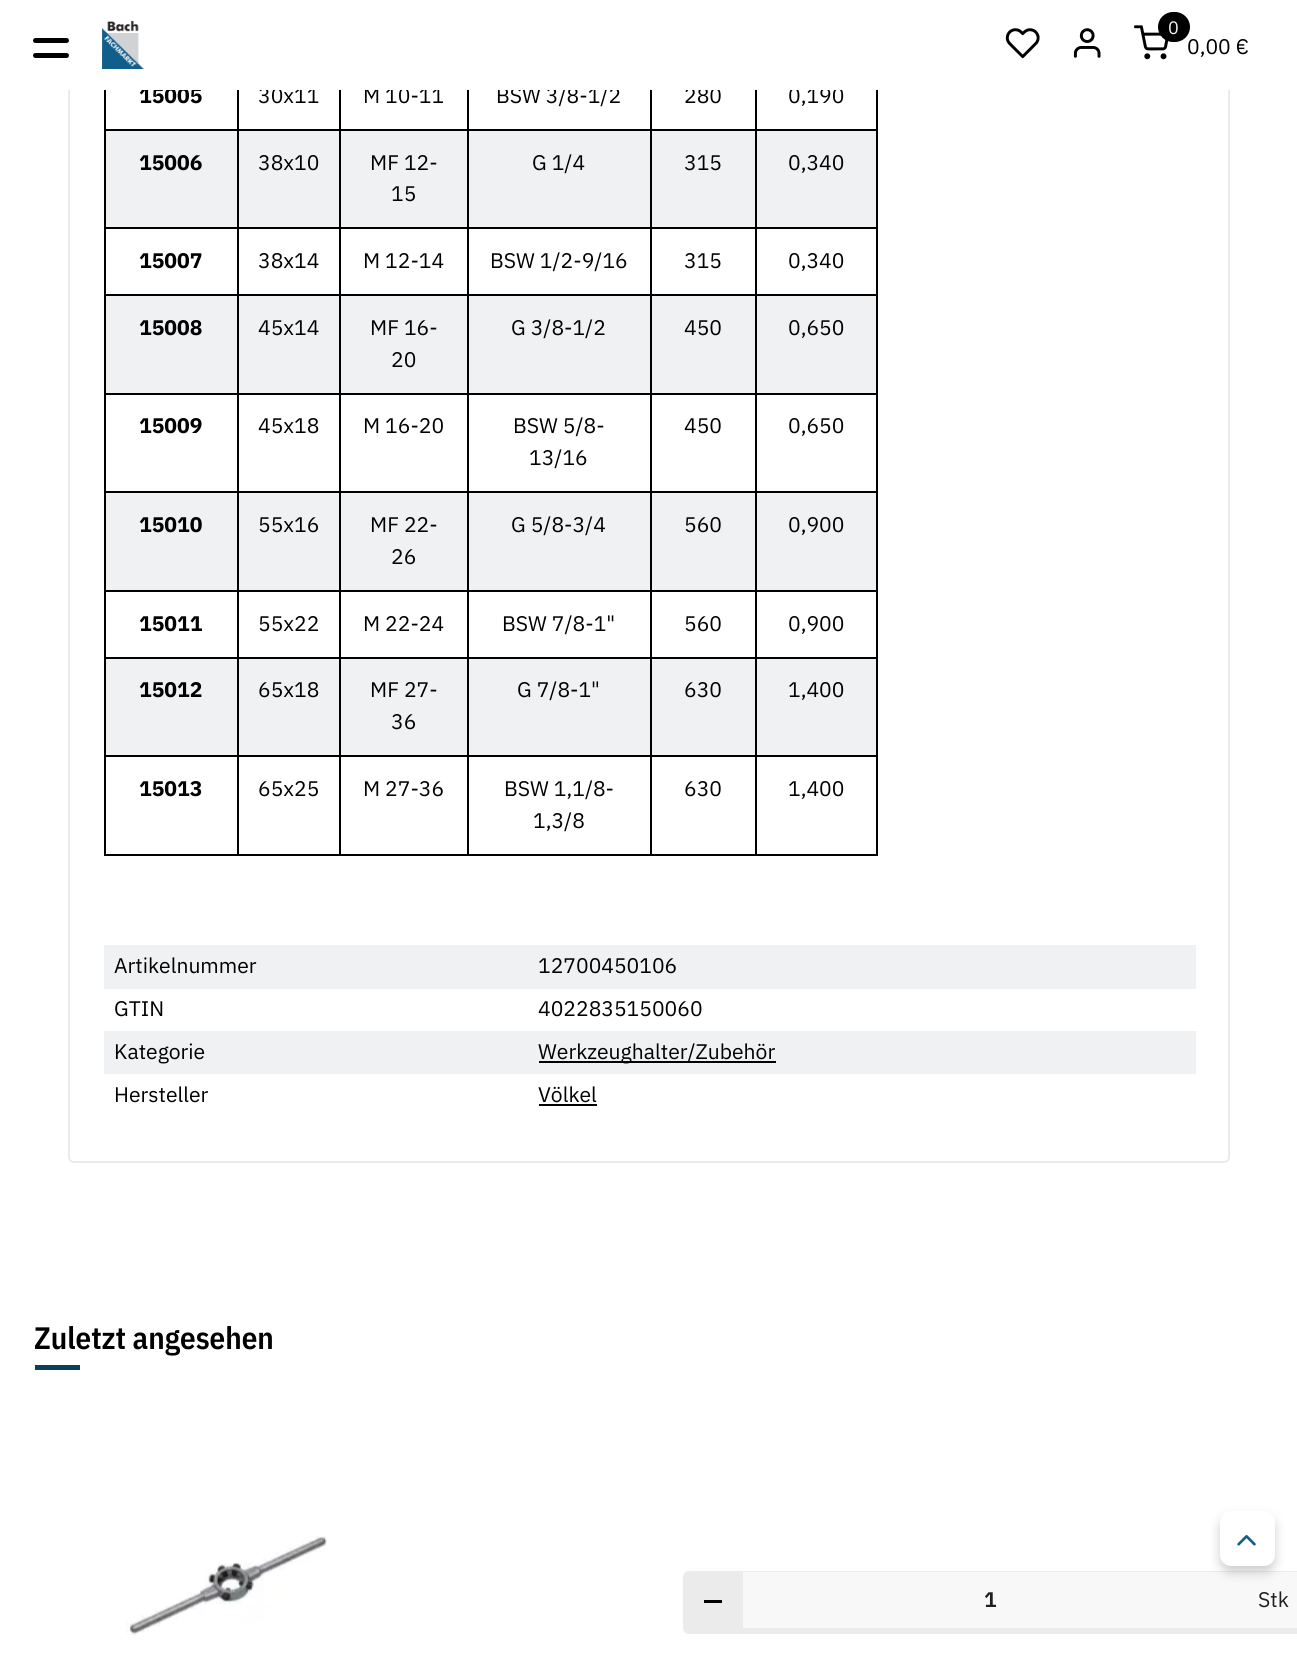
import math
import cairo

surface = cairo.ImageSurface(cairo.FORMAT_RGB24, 1297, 1655)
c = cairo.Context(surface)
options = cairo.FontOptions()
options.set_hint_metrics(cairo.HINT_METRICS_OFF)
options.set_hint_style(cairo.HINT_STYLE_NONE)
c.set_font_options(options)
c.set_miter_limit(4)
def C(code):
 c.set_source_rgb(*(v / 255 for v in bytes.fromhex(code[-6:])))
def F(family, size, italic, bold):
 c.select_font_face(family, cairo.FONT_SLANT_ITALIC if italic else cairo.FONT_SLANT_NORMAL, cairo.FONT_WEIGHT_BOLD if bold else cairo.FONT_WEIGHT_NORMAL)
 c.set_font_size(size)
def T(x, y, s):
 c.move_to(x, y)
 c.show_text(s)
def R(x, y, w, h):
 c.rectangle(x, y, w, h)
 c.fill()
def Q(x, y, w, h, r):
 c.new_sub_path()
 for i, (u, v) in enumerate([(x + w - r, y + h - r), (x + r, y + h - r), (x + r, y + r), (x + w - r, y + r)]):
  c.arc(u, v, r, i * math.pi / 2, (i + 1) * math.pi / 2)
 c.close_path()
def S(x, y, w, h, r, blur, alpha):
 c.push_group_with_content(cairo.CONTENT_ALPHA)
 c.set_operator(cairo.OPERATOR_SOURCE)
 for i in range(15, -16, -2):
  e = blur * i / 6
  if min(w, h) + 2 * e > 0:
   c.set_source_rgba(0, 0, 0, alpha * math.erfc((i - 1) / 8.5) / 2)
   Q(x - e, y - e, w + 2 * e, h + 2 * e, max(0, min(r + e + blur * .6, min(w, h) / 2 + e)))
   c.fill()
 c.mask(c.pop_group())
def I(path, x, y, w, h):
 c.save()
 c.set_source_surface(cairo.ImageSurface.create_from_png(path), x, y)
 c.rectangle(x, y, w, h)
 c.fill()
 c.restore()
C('ffffff')
c.paint()
c.new_path()
c.move_to(69,-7)
c.line_to(1224,-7)
c.curve_to(1227,-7,1229,-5,1229,-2)
c.line_to(1229,1157)
c.curve_to(1229,1160,1227,1162,1224,1162)
c.line_to(74,1162)
c.curve_to(71,1162,69,1160,69,1157)
c.close_path()
C('ebebeb')
c.stroke()
F('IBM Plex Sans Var',21.1,0,1)
C('000000')
T(139,103,'15005')
F('IBM Plex Sans Var',21.1,0,0)
T(258,103,'30x11')
T(363,103,'M 10-11')
T(496,103,'BSW 3/8-1/2')
T(684,103,'280')
T(788,103,'0,190')
C('ffffff')
R(68,0,1162,90)
C('000000')
Q(33,38,36,5,2.5)
c.fill()
Q(33,53,36,5,2.5)
c.fill()
I('1.png',102,21,42,48)
I('2.png',1005,28,35,31)
I('3.png',1073,28,28,30)
I('4.png',1134,25,35,35)
Q(1158,12,32,30,15)
c.fill()
F('IBM Plex Sans Var',18,0,0)
C('eff1f3')
T(1168,34,'0')
F('IBM Plex Sans Var',21.1,0,0)
C('000000')
T(1187,54,'0,00 €')
R(755,129,123,2)
C('eff1f3')
R(106,131,770,96)
C('000000')
R(755,227,123,2)
R(755,294,123,2)
C('eff1f3')
R(106,296,770,97)
C('000000')
R(755,393,123,2)
R(755,491,123,2)
C('eff1f3')
R(106,493,770,97)
C('000000')
R(755,590,123,2)
R(755,657,123,2)
C('eff1f3')
R(106,659,770,96)
C('000000')
R(755,755,123,2)
R(876,755,2,100)
R(755,854,123,2)
R(755,755,2,100)
R(650,755,106,2)
R(755,657,2,99)
R(650,657,106,2)
R(755,590,2,69)
R(650,590,106,2)
R(755,491,2,100)
R(650,491,106,2)
R(755,393,2,99)
R(650,393,106,2)
R(755,294,2,101)
R(650,294,106,2)
R(755,227,2,69)
R(650,227,106,2)
R(755,129,2,99)
R(650,129,106,2)
R(650,854,106,2)
R(650,755,2,100)
R(467,755,184,2)
R(650,657,2,99)
R(467,657,184,2)
R(650,590,2,69)
R(467,590,184,2)
R(650,491,2,100)
R(467,491,184,2)
R(650,393,2,99)
R(467,393,184,2)
R(650,294,2,101)
R(467,294,184,2)
R(650,227,2,69)
R(467,227,184,2)
R(650,129,2,99)
R(467,129,184,2)
R(467,854,184,2)
R(467,755,2,100)
R(339,755,129,2)
R(467,657,2,99)
R(339,657,129,2)
R(467,590,2,69)
R(339,590,129,2)
R(467,491,2,100)
R(339,491,129,2)
R(467,393,2,99)
R(339,393,129,2)
R(467,294,2,101)
R(339,294,129,2)
R(467,227,2,69)
R(339,227,129,2)
R(467,129,2,99)
R(339,129,129,2)
R(339,854,129,2)
R(339,755,2,100)
R(237,755,104,2)
R(339,657,2,99)
R(237,657,104,2)
R(339,590,2,69)
R(237,590,104,2)
R(339,491,2,100)
R(237,491,104,2)
R(339,393,2,99)
R(237,393,104,2)
R(339,294,2,101)
R(237,294,104,2)
R(339,227,2,69)
R(237,227,104,2)
R(339,129,2,99)
R(237,129,104,2)
R(237,854,104,2)
R(237,755,2,100)
R(104,755,135,2)
R(237,657,2,99)
R(104,657,135,2)
R(237,590,2,69)
R(104,590,135,2)
R(237,491,2,100)
R(104,491,135,2)
R(237,393,2,99)
R(104,393,135,2)
R(237,294,2,101)
R(104,294,135,2)
R(237,227,2,69)
R(104,227,135,2)
R(237,129,2,99)
R(104,129,135,2)
R(237,90,2,41)
R(339,90,2,41)
R(467,90,2,41)
R(650,90,2,41)
R(755,90,2,41)
R(104,854,135,2)
R(104,755,2,100)
R(104,657,2,99)
R(104,590,2,69)
R(104,491,2,100)
R(104,393,2,99)
R(104,294,2,101)
R(104,227,2,69)
R(104,90,2,138)
F('IBM Plex Sans Var',21.1,0,1)
T(139,170,'15006')
F('IBM Plex Sans Var',21.1,0,0)
T(258,170,'38x10')
T(370,170,'MF 12-')
T(391,201,'15')
T(532,170,'G 1/4')
T(684,170,'315')
R(876,657,2,99)
R(876,590,2,69)
R(876,491,2,100)
R(876,393,2,99)
R(876,294,2,101)
R(876,227,2,69)
R(876,90,2,138)
T(788,170,'0,340')
F('IBM Plex Sans Var',21.1,0,1)
T(139,268,'15007')
F('IBM Plex Sans Var',21.1,0,0)
T(258,268,'38x14')
T(363,268,'M 12-14')
T(490,268,'BSW 1/2-9/16')
T(684,268,'315')
T(788,268,'0,340')
F('IBM Plex Sans Var',21.1,0,1)
T(139,335,'15008')
F('IBM Plex Sans Var',21.1,0,0)
T(258,335,'45x14')
T(370,335,'MF 16-')
T(391,367,'20')
T(511,335,'G 3/8-1/2')
T(684,335,'450')
T(788,335,'0,650')
F('IBM Plex Sans Var',21.1,0,1)
T(139,433,'15009')
F('IBM Plex Sans Var',21.1,0,0)
T(258,433,'45x18')
T(363,433,'M 16-20')
T(513,433,'BSW 5/8-')
T(529,465,'13/16')
T(684,433,'450')
T(788,433,'0,650')
F('IBM Plex Sans Var',21.1,0,1)
T(139,532,'15010')
F('IBM Plex Sans Var',21.1,0,0)
T(258,532,'55x16')
T(370,532,'MF 22-')
T(391,564,'26')
T(511,532,'G 5/8-3/4')
T(684,532,'560')
T(788,532,'0,900')
F('IBM Plex Sans Var',21.1,0,1)
T(139,631,'15011')
F('IBM Plex Sans Var',21.1,0,0)
T(258,631,'55x22')
T(363,631,'M 22-24')
T(502,631,'BSW 7/8-1"')
T(684,631,'560')
T(788,631,'0,900')
F('IBM Plex Sans Var',21.1,0,1)
T(139,697,'15012')
F('IBM Plex Sans Var',21.1,0,0)
T(258,697,'65x18')
T(370,697,'MF 27-')
T(391,729,'36')
T(517,697,'G 7/8-1"')
T(684,697,'630')
T(788,697,'1,400')
F('IBM Plex Sans Var',21.1,0,1)
T(139,796,'15013')
F('IBM Plex Sans Var',21.1,0,0)
T(258,796,'65x25')
T(363,796,'M 27-36')
T(504,796,'BSW 1,1/8-')
T(533,828,'1,3/8')
T(684,796,'630')
T(788,796,'1,400')
C('eff1f3')
R(104,945,1092,44)
C('000000')
T(114,973,'Artikelnummer')
T(538,973,'12700450106')
T(114,1016,'GTIN')
T(538,1016,'4022835150060')
C('eff1f3')
R(104,1031,1092,43)
C('000000')
T(114,1059,'Kategorie')
R(539,1061,237,2)
T(538,1059,'Werkzeughalter/Zubehör')
T(114,1102,'Hersteller')
T(538,1102,'Völkel')
R(539,1104,58,2)
C('ebebeb')
Q(683,1571,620,63,6)
c.fill()
C('000000')
R(704,1600,18,3)
C('f8f8f8')
R(743,1572,554,56)
F('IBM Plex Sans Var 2 SemiBold',21.1,0,0)
C('202020')
T(984,1607,'1')
F('IBM Plex Sans Var',21.1,0,0)
T(1258,1607,'Stk')
F('IBM Plex Sans Var SemiBold',31,0,0)
C('000000')
T(34,1349,'Zuletzt angesehen')
C('0c3f5e')
R(35,1365,45,5)
I('5.png',126,1536,201,102)
C('000000')
S(1220,1517,55,55,11,5.5,.2)
C('ffffff')
Q(1220,1511,55,55,11)
c.fill()
I('6.png',1237,1535,19,11)
surface.write_to_png('o.png')
